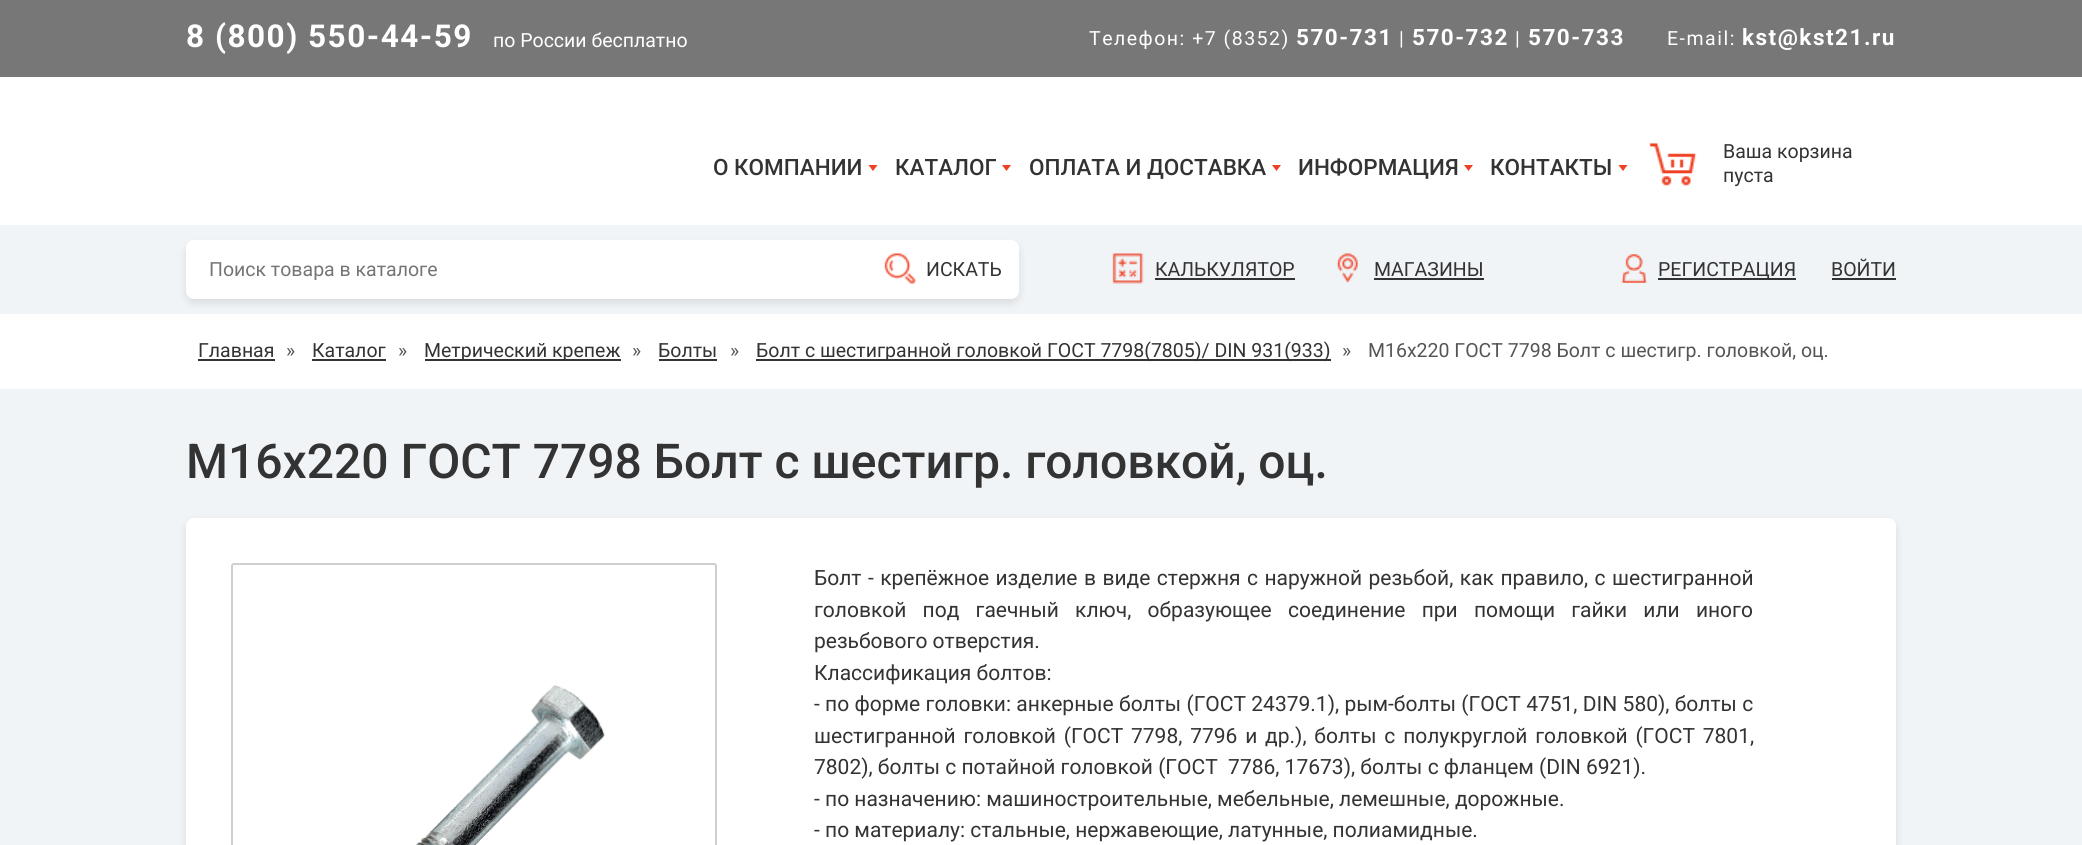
import math
import cairo

surface = cairo.ImageSurface(cairo.FORMAT_RGB24, 2082, 845)
c = cairo.Context(surface)
options = cairo.FontOptions()
options.set_hint_metrics(cairo.HINT_METRICS_OFF)
options.set_hint_style(cairo.HINT_STYLE_NONE)
c.set_font_options(options)
c.set_miter_limit(4)
def C(code):
 c.set_source_rgb(*(v / 255 for v in bytes.fromhex(code[-6:])))
def F(family, size, italic, bold):
 c.select_font_face(family, cairo.FONT_SLANT_ITALIC if italic else cairo.FONT_SLANT_NORMAL, cairo.FONT_WEIGHT_BOLD if bold else cairo.FONT_WEIGHT_NORMAL)
 c.set_font_size(size)
def T(x, y, s):
 c.move_to(x, y)
 c.show_text(s)
def L(x, y, s, letter, word):
 c.move_to(x, y)
 for ch in s:
  c.show_text(ch)
  c.rel_move_to(letter + word * (ch == ' '), 0)
def R(x, y, w, h):
 c.rectangle(x, y, w, h)
 c.fill()
def Q(x, y, w, h, r):
 c.new_sub_path()
 for i, (u, v) in enumerate([(x + w - r, y + h - r), (x + r, y + h - r), (x + r, y + r), (x + w - r, y + r)]):
  c.arc(u, v, r, i * math.pi / 2, (i + 1) * math.pi / 2)
 c.close_path()
def S(x, y, w, h, r, blur, alpha):
 c.push_group_with_content(cairo.CONTENT_ALPHA)
 c.set_operator(cairo.OPERATOR_SOURCE)
 for i in range(15, -16, -2):
  e = blur * i / 6
  if min(w, h) + 2 * e > 0:
   c.set_source_rgba(0, 0, 0, alpha * math.erfc((i - 1) / 8.5) / 2)
   Q(x - e, y - e, w + 2 * e, h + 2 * e, max(0, min(r + e + blur * .6, min(w, h) / 2 + e)))
   c.fill()
 c.mask(c.pop_group())
def I(path, x, y, w, h):
 c.save()
 c.set_source_surface(cairo.ImageSurface.create_from_png(path), x, y)
 c.rectangle(x, y, w, h)
 c.fill()
 c.restore()
C('ffffff')
c.paint()
C('777777')
R(0,0,2082,77)
F('Roboto',31.5,0,1)
C('ffffff')
L(186,47,'8 (800) 550-44-59',1.5,0)
F('Roboto',19.5,0,0)
T(493,47,'по России бесплатно')
L(1089,45,'Телефон: +7 (8352)',1.5,0)
F('Roboto',22.5,0,1)
L(1296,45,'570-731',1.5,0)
F('Roboto',19.5,0,0)
L(1399,45,'|',1.5,0)
F('Roboto',22.5,0,1)
L(1412,45,'570-732',1.5,0)
F('Roboto',19.5,0,0)
L(1515,45,'|',1.5,0)
F('Roboto',22.5,0,1)
L(1528,45,'570-733',1.5,0)
F('Roboto',19.5,0,0)
L(1667,45,'E-mail:',1.5,0)
F('Roboto',22.5,0,1)
L(1742,45,'kst@kst21.ru',1.5,0)
F('Roboto Medium',22.5,0,0)
C('333333')
T(713,175,'О КОМПАНИИ')
C('ef4023')
c.new_path()
c.move_to(868.5,165)
c.line_to(877.5,165)
c.line_to(873,171)
c.close_path()
c.fill()
C('333333')
T(895,175,'КАТАЛОГ')
C('ef4023')
c.new_path()
c.move_to(1002,165)
c.line_to(1011,165)
c.line_to(1006.5,171)
c.close_path()
c.fill()
C('333333')
T(1029,175,'ОПЛАТА И ДОСТАВКА')
C('ef4023')
c.new_path()
c.move_to(1272,165)
c.line_to(1281,165)
c.line_to(1276.5,171)
c.close_path()
c.fill()
C('333333')
T(1298,175,'ИНФОРМАЦИЯ')
C('ef4023')
c.new_path()
c.move_to(1464,165)
c.line_to(1473,165)
c.line_to(1468.5,171)
c.close_path()
c.fill()
C('333333')
T(1490,175,'КОНТАКТЫ')
C('ef4023')
c.new_path()
c.move_to(1618.5,165)
c.line_to(1627.5,165)
c.line_to(1623,171)
c.close_path()
c.fill()
I('1.png',1649,143,48,43)
F('Roboto',19.5,0,0)
C('333333')
T(1723,158,'Ваша корзина')
T(1723,182,'пуста')
C('f0f4f7')
R(0,225,2082,89)
C('000000')
S(186,245,833,58,8,4,.1)
C('ffffff')
Q(186,240,833,59,8)
c.fill()
C('757575')
T(209,276,'Поиск товара в каталоге')
I('2.png',884,253,32,31)
C('333333')
T(926,276,'ИСКАТЬ')
I('3.png',1112,253,32,31)
T(1155,276,'КАЛЬКУЛЯТОР')
R(1155,278,140,2)
I('4.png',1336,253,22,30)
T(1374,276,'МАГАЗИНЫ')
R(1374,278,110,2)
I('5.png',1621,254,27,29)
R(1658,278,138,2)
T(1658,276,'РЕГИСТРАЦИЯ')
T(1831,276,'ВОЙТИ')
R(1832,278,64,2)
T(198,357,'Главная')
R(198,359,77,2)
C('555555')
T(286,357,'»')
C('333333')
T(312,357,'Каталог')
R(312,359,74,2)
C('555555')
T(398,357,'»')
C('333333')
R(425,359,196,2)
T(424,357,'Метрический крепеж')
C('555555')
T(632,357,'»')
C('333333')
T(658,357,'Болты')
R(659,359,58,2)
C('555555')
T(730,357,'»')
C('333333')
R(756,359,575,2)
T(756,357,'Болт с шестигранной головкой ГОСТ 7798(7805)/ DIN 931(933)')
C('555555')
T(1342,357,'»')
T(1368,357,'М16х220 ГОСТ 7798 Болт с шестигр. головкой, оц.')
C('f0f4f7')
R(0,389,2082,456)
F('Roboto Medium',48,0,0)
C('333333')
T(186,478,'М16х220 ГОСТ 7798 Болт с шестигр. головкой, оц.')
C('000000')
S(186,522,1710,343,8,4,.1)
C('ffffff')
Q(186,518,1710,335,8)
c.fill()
Q(232,564,484,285,2)
C('cfcfcf')
c.stroke()
I('6.png',416,685,189,160)
F('Roboto',21,0,0)
C('333333')
L(814,585,'Болт - крепёжное изделие в виде стержня с наружной резьбой, как правило, с шестигранной',0,1.25)
L(814,617,'головкой под гаечный ключ, образующее соединение при помощи гайки или иного',0,11)
T(814,648,'резьбового отверстия.')
T(814,680,'Классификация болтов:')
L(814,711,'- по форме головки: анкерные болты (ГОСТ 24379.1), рым-болты (ГОСТ 4751, DIN 580), болты с',0,.1)
L(814,743,'шестигранной головкой (ГОСТ 7798, 7796 и др.), болты с полукруглой головкой (ГОСТ 7801,',0,2.6)
T(814,774,'7802), болты с потайной головкой (ГОСТ  7786, 17673), болты с фланцем (DIN 6921).')
T(814,806,'- по назначению: машиностроительные, мебельные, лемешные, дорожные.')
T(814,837,'- по материалу: стальные, нержавеющие, латунные, полиамидные.')
surface.write_to_png('o.png')
